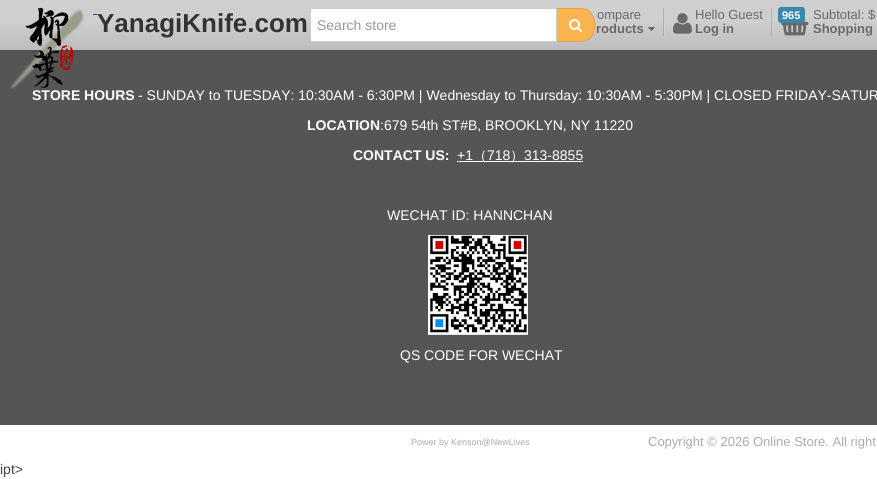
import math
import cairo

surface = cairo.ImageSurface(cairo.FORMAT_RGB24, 877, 479)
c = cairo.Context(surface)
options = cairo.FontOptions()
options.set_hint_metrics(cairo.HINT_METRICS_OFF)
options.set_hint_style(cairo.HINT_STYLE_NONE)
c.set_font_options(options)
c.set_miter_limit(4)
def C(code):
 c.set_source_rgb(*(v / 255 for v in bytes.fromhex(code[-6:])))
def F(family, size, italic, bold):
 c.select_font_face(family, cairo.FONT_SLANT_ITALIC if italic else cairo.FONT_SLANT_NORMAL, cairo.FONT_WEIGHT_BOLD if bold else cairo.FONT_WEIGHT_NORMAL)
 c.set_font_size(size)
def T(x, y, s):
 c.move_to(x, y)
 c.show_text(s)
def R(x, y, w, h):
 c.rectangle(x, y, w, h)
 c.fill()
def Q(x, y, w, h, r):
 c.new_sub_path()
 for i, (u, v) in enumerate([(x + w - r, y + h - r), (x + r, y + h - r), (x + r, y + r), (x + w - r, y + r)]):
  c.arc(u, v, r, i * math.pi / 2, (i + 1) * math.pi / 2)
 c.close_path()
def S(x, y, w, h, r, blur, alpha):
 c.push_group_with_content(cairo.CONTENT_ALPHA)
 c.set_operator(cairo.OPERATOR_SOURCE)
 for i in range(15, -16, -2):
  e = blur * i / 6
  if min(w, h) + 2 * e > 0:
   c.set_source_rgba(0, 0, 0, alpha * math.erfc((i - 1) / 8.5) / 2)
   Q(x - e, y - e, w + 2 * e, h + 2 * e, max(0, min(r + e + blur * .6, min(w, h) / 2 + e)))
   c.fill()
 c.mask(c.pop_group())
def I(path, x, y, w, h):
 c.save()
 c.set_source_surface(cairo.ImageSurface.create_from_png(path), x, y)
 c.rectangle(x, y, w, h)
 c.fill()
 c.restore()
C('ffffff')
c.paint()
C('555555')
R(0,51,877,374)
C('4f4f4f')
S(0,0,877,51,0,4,1)
gradient = cairo.LinearGradient(439,0,439,50)
gradient.add_color_stop_rgba(0,0.812,0.812,0.812,1)
gradient.add_color_stop_rgba(.4,0.812,0.812,0.812,1)
gradient.add_color_stop_rgba(1,0.741,0.741,0.741,1)
c.set_source(gradient)
R(0,0,877,50)
gradient = cairo.LinearGradient(439,0,439,50)
gradient.add_color_stop_rgba(0,0.69,0.69,0.69,1)
gradient.add_color_stop_rgba(.4,0.69,0.69,0.69,1)
gradient.add_color_stop_rgba(1,0.631,0.631,0.631,1)
c.set_source(gradient)
R(663,8,1,28)
R(771,8,1,28)
C('4f4f4f')
R(0,50,877,1)
I('1.png',10,7,75,82)
C('005580')
R(93,14,4,1)
F('Liberation Sans',26,0,1)
C('333333')
T(97,32,'YanagiKnife.com')
C('fbb450')
c.new_path()
c.move_to(556,8)
c.line_to(581,8)
c.curve_to(588.5,8,595,14.5,595,22)
c.line_to(595,28)
c.curve_to(595,35.5,588.5,42,581,42)
c.line_to(556,42)
c.close_path()
c.fill()
c.new_path()
c.move_to(556.5,8.5)
c.line_to(581,8.5)
c.curve_to(588.5,8.5,594.5,14.5,594.5,22)
c.line_to(594.5,28)
c.curve_to(594.5,35.5,588.5,41.5,581,41.5)
c.line_to(556.5,41.5)
c.close_path()
c.set_source_rgba(0,0,0,0.1)
c.set_line_width(1)
c.stroke()
C('ffffff')
c.new_path()
c.move_to(312,8.5)
c.line_to(556.5,8.5)
c.line_to(556.5,41.5)
c.line_to(312,41.5)
c.curve_to(311,41.5,310.5,41,310.5,40)
c.line_to(310.5,10)
c.curve_to(310.5,9,311,8.5,312,8.5)
c.close_path()
c.fill_preserve()
C('cccccc')
c.stroke()
F('Liberation Sans',14,0,0)
C('999999')
T(317,30,'Search store')
I('2.png',569,19,13,13)
F('Liberation Sans',13,0,0)
C('696969')
T(597,19,'ompare')
F('Liberation Sans',13,0,1)
T(596,33,'roducts')
I('3.png',648,27,7,4)
C('cfcfcf')
R(664,24,1,12)
I('4.png',673,13,19,21)
F('Liberation Sans',13,0,0)
C('696969')
T(695,19,'Hello Guest')
F('Liberation Sans',13,0,1)
T(695,33,'Log in')
C('cfcfcf')
R(772,24,1,12)
I('5.png',781,20,28,16)
C('3a87ad')
Q(778,7,27,16,3)
c.fill()
F('Liberation Sans',11,0,1)
C('ffffff')
T(782,19,'965')
F('Liberation Sans',13,0,0)
C('696969')
T(813,19,'Subtotal: $')
F('Liberation Sans',13,0,1)
T(813,33,'Shopping')
F('Liberation Sans',14,0,1)
C('ffffff')
T(32,100,'STORE HOURS')
F('Liberation Sans',14,0,0)
T(138,100,'- SUNDAY to TUESDAY: 10:30AM - 6:30PM | Wednesday to Thursday: 10:30AM - 5:30PM | CLOSED FRIDAY-SATUR')
F('Liberation Sans',14,0,1)
T(307,130,'LOCATION')
F('Liberation Sans',14,0,0)
T(380,130,':679 54th ST#B, BROOKLYN, NY 11220')
F('Liberation Sans',14,0,1)
T(353,160,'CONTACT US:')
F('Liberation Sans',14,0,0)
T(457,160,'+1')
R(457,161,126,1)
F('WenQuanYi Zen Hei Medium',14,0,0)
T(473,160,'（')
F('Liberation Sans',14,0,0)
T(487,160,'718')
F('WenQuanYi Zen Hei Medium',14,0,0)
T(510,160,'）')
F('Liberation Sans',14,0,0)
T(524,160,'313-8855')
T(387,220,'WECHAT ID: HANNCHAN')
I('6.png',428,235,100,100)
T(400,360,'QS CODE FOR WECHAT')
F('Liberation Sans',9,0,0)
C('acacac')
T(411,445,'Power by Kenson@NewLives')
F('Liberation Sans',13,0,0)
T(648,446,'Copyright © 2026 Online Store. All right')
F('Liberation Sans',14,0,0)
C('444444')
T(0,474,'ipt>')
surface.write_to_png('o.png')
